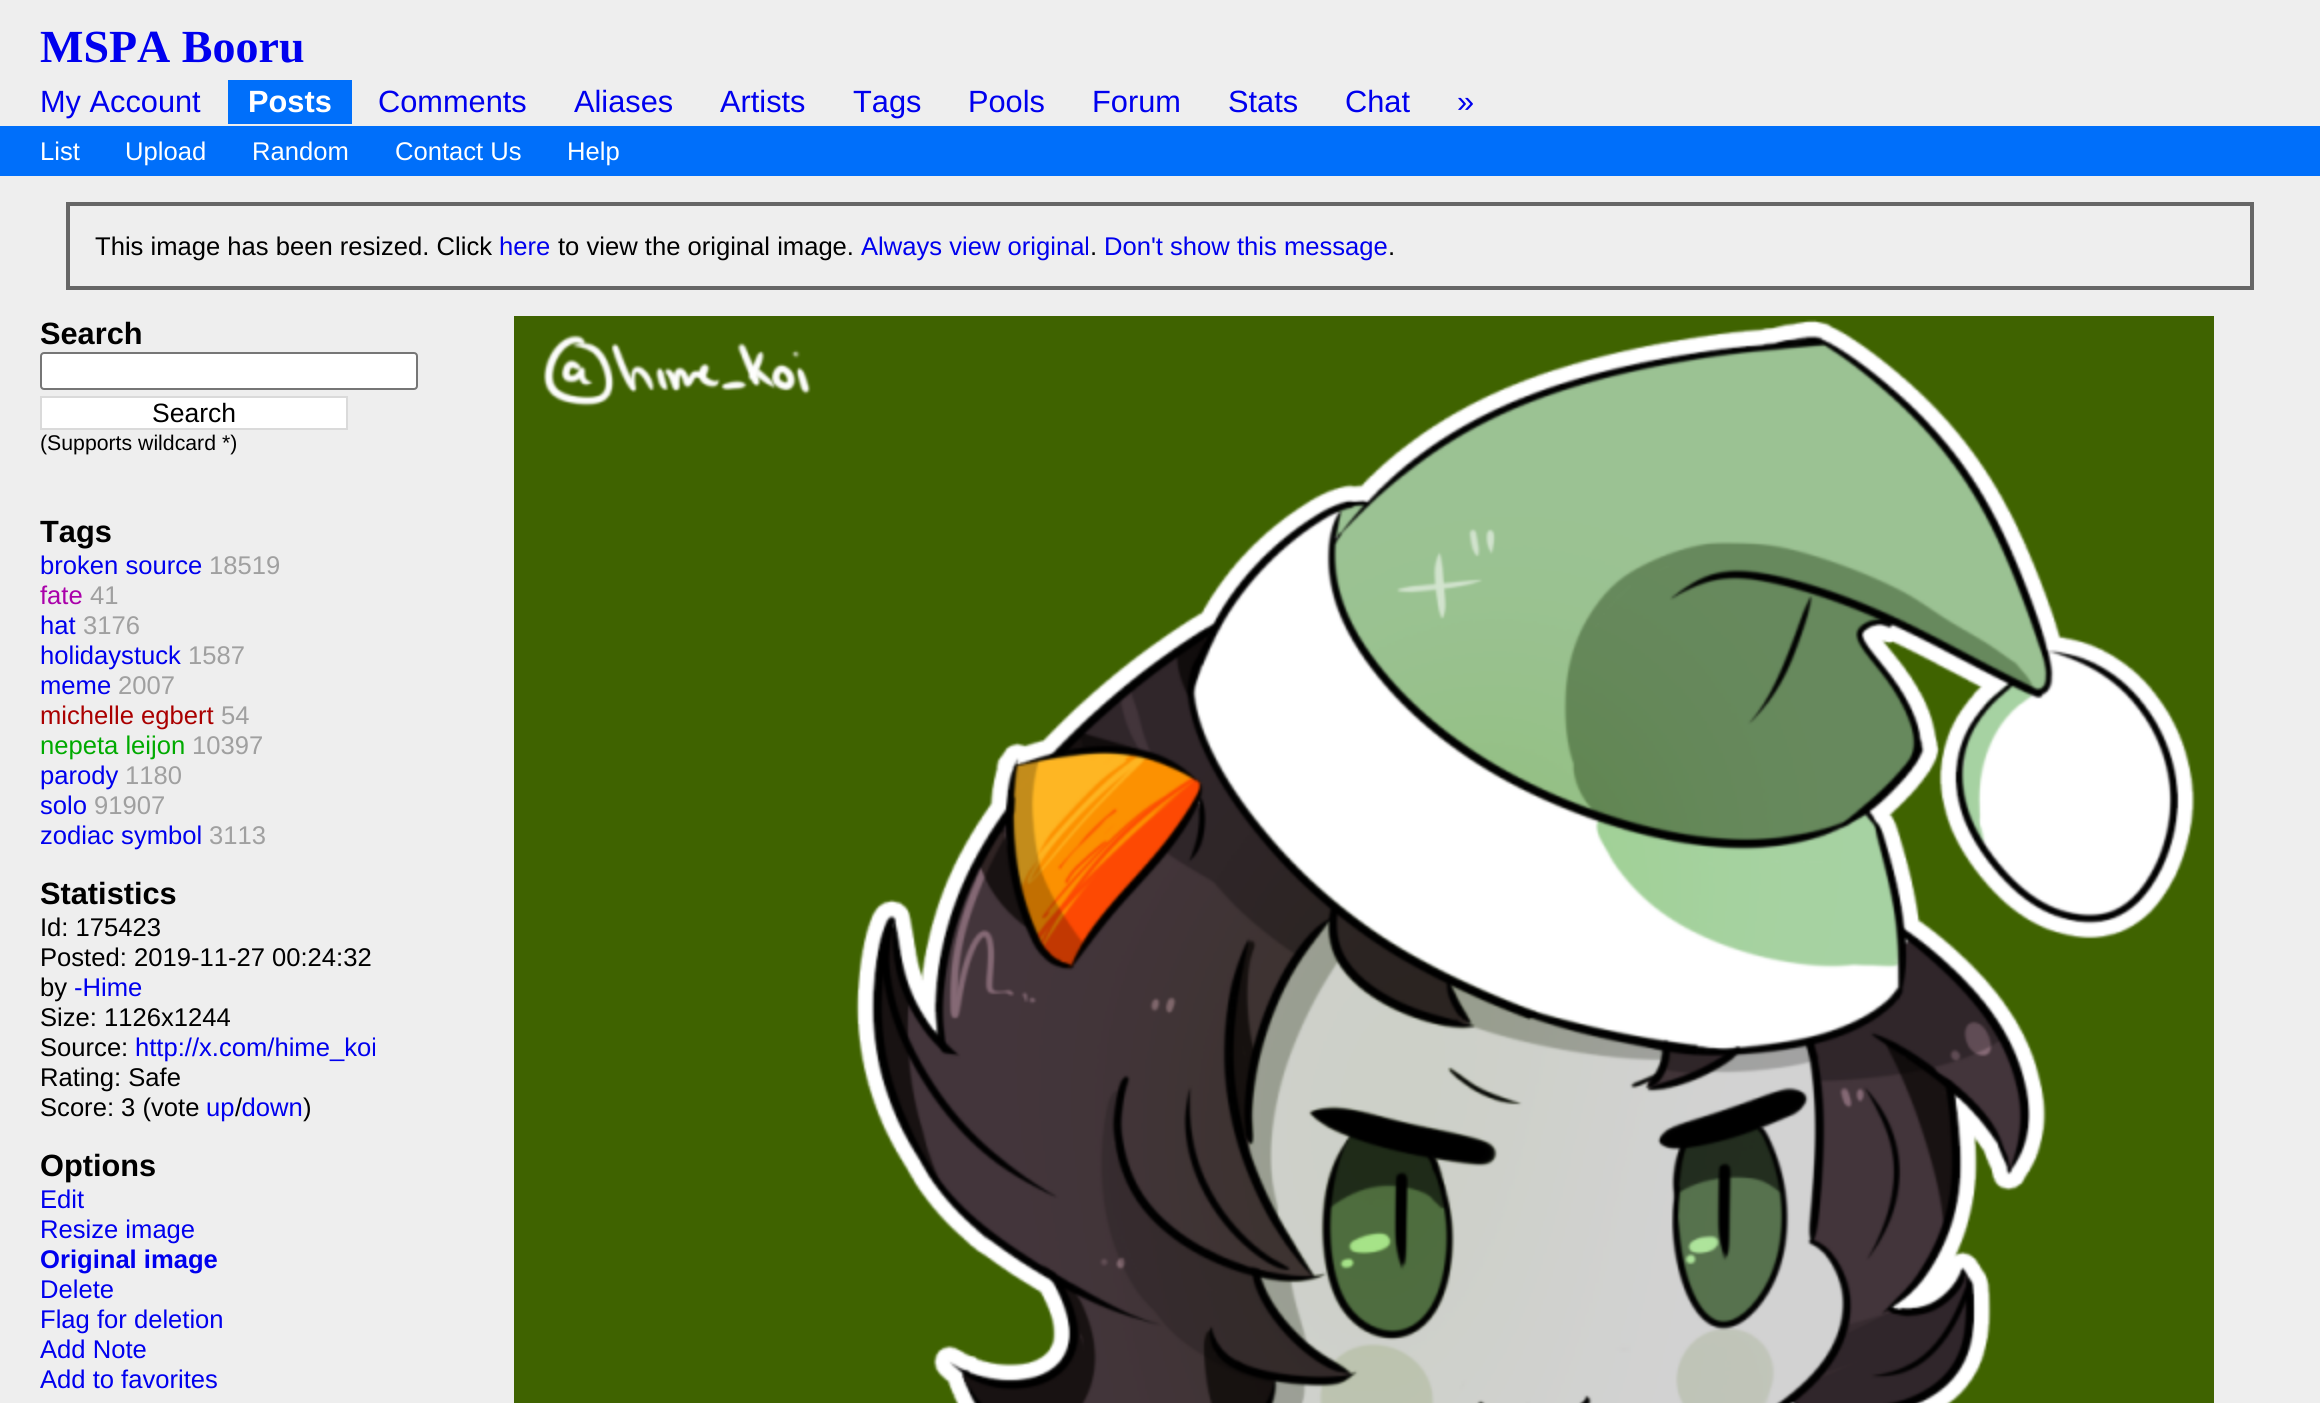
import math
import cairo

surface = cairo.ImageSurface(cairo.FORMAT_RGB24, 2320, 1403)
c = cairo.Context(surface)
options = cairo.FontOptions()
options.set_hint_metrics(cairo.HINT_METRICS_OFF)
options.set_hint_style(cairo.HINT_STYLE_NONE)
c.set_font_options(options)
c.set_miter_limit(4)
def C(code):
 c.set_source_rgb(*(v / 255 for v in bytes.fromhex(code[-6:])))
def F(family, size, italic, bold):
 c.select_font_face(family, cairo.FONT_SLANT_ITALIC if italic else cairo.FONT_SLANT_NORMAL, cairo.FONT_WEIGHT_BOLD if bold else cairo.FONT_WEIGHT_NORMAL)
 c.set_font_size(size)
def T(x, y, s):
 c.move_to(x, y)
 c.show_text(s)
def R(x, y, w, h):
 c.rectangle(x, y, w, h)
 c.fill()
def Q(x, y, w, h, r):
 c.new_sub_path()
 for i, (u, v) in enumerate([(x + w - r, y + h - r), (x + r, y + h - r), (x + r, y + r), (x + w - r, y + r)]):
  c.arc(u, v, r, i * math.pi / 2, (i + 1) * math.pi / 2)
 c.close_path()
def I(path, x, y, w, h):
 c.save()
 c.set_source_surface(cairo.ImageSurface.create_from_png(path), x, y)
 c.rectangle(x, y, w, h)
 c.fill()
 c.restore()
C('eeeeee')
c.paint()
F('Liberation Serif',46,0,1)
C('0000ee')
T(40,62,'MSPA Booru')
F('Liberation Sans',30.75,0,0)
T(40,112,'My Account')
C('006ffa')
R(228,80,124,44)
F('Liberation Sans',30.75,0,1)
C('ffffff')
T(248,112,'Posts')
F('Liberation Sans',30.75,0,0)
C('0000ee')
T(378,112,'Comments')
T(574,112,'Aliases')
T(720,112,'Artists')
T(853,112,'Tags')
T(968,112,'Pools')
T(1092,112,'Forum')
T(1228,112,'Stats')
T(1345,112,'Chat')
T(1457,112,'»')
C('006ffa')
R(0,126,2320,50)
F('Liberation Sans',25.6,0,0)
C('ffffff')
T(40,160,'List')
T(125,160,'Upload')
T(252,160,'Random')
T(395,160,'Contact Us')
T(567,160,'Help')
c.rectangle(68,204,2184,84)
C('666666')
c.set_line_width(4)
c.stroke()
C('000000')
T(95,255,'This image has been resized. Click')
C('0000ee')
T(499,255,'here')
C('000000')
T(558,255,'to view the original image.')
C('0000ee')
T(861,255,'Always view original')
C('000000')
T(1090,255,'.')
C('0000ee')
T(1104,255,'Don\'t show this message')
C('000000')
T(1388,255,'.')
F('Liberation Sans',30.75,0,1)
T(40,344,'Search')
C('ffffff')
Q(41,353,376,36,3)
c.fill_preserve()
C('767676')
c.set_line_width(2)
c.stroke()
C('ffffff')
c.rectangle(41,397,306,32)
c.fill_preserve()
C('dadada')
c.stroke()
F('Liberation Sans',26.5,0,0)
C('000000')
T(152,422,'Search')
F('Liberation Sans',21.25,0,0)
T(40,450,'(Supports wildcard *)')
F('Liberation Sans',30.75,0,1)
T(40,542,'Tags')
F('Liberation Sans',25.6,0,0)
C('0000ee')
T(40,574,'broken source')
C('a0a0a0')
T(209,574,'18519')
C('aa00aa')
T(40,604,'fate')
C('a0a0a0')
T(90,604,'41')
C('0000ee')
T(40,634,'hat')
C('a0a0a0')
T(83,634,'3176')
C('0000ee')
T(40,664,'holidaystuck')
C('a0a0a0')
T(188,664,'1587')
C('0000ee')
T(40,694,'meme')
C('a0a0a0')
T(118,694,'2007')
C('aa0000')
T(40,724,'michelle egbert')
C('a0a0a0')
T(221,724,'54')
C('00aa00')
T(40,754,'nepeta leijon')
C('a0a0a0')
T(192,754,'10397')
C('0000ee')
T(40,784,'parody')
C('a0a0a0')
T(125,784,'1180')
C('0000ee')
T(40,814,'solo')
C('a0a0a0')
T(94,814,'91907')
C('0000ee')
T(40,844,'zodiac symbol')
C('a0a0a0')
T(209,844,'3113')
F('Liberation Sans',30.75,0,1)
C('000000')
T(40,904,'Statistics')
F('Liberation Sans',25.6,0,0)
T(40,936,'Id: 175423')
T(40,966,'Posted: 2019-11-27 00:24:32')
T(40,996,'by')
C('0000ee')
T(74,996,'-Hime')
C('000000')
T(40,1026,'Size: 1126x1244')
T(40,1056,'Source:')
C('0000ee')
T(135,1056,'http://x.com/hime_koi')
C('000000')
T(40,1086,'Rating: Safe')
T(40,1116,'Score: 3 (vote')
C('0000ee')
T(206,1116,'up down')
C('000000')
T(235,1116,'/')
T(303,1116,')')
F('Liberation Sans',30.75,0,1)
T(40,1176,'Options')
F('Liberation Sans',25.6,0,0)
C('0000ee')
T(40,1208,'Edit')
T(40,1238,'Resize image')
F('Liberation Sans',25.6,0,1)
T(40,1268,'Original image')
F('Liberation Sans',25.6,0,0)
T(40,1298,'Delete')
T(40,1328,'Flag for deletion')
T(40,1358,'Add Note')
T(40,1388,'Add to favorites')
I('1.png',514,316,1700,1087)
surface.write_to_png('o.png')
